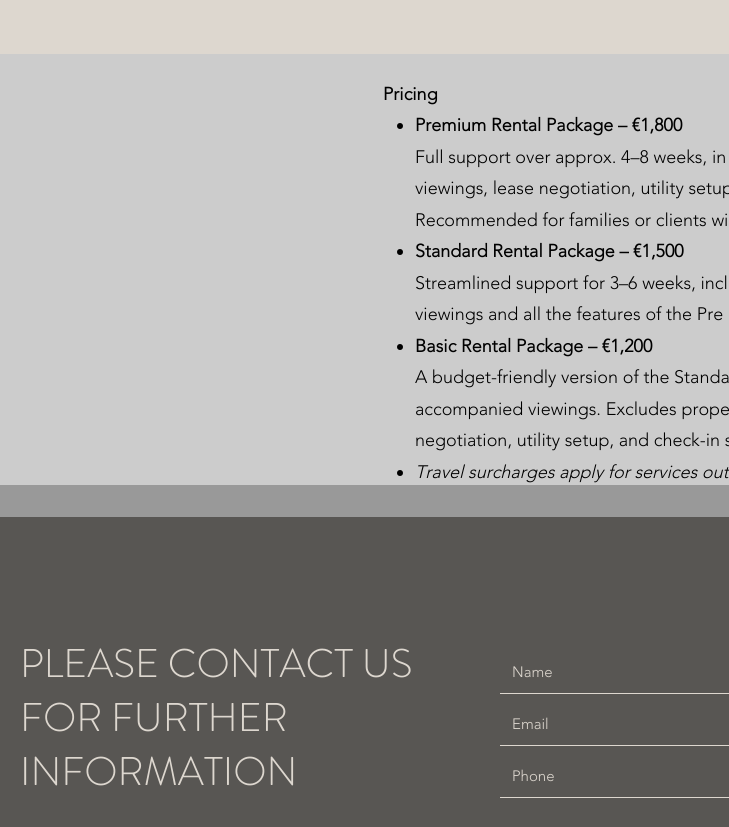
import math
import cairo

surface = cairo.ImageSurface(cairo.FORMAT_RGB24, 729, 827)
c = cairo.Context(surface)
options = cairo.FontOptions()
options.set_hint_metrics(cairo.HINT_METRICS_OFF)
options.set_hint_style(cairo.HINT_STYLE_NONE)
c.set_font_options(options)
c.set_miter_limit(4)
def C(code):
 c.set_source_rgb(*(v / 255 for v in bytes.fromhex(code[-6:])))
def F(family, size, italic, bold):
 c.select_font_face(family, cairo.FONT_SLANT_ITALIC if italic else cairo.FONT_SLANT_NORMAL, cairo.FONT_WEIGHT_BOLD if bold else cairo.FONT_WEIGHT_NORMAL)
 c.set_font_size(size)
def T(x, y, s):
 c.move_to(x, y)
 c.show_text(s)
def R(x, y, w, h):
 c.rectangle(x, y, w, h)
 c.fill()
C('999999')
c.paint()
C('ddd7cf')
R(0,0,729,54)
C('cccccc')
R(0,54,729,431)
F('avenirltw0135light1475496',18,0,1)
C('000000')
T(383,100,'Pricing')
c.new_path()
c.arc(400,126,3,0,2 * math.pi)
c.fill()
T(415,131,'Premium Rental Package – €1,800')
F('avenirltw0135light1475496 Light',18,0,0)
T(415,163,'Full support over approx. 4–8 weeks, in')
T(415,194,'viewings, lease negotiation, utility setup')
T(415,226,'Recommended for families or clients wi')
c.new_path()
c.arc(400,252,3,0,2 * math.pi)
c.fill()
F('avenirltw0135light1475496',18,0,1)
T(415,257,'Standard Rental Package – €1,500')
F('avenirltw0135light1475496 Light',18,0,0)
T(415,289,'Streamlined support for 3–6 weeks, incl')
T(415,320,'viewings and all the features of the Pre')
c.new_path()
c.arc(400,347,3,0,2 * math.pi)
c.fill()
F('avenirltw0135light1475496',18,0,1)
T(415,352,'Basic Rental Package – €1,200')
F('avenirltw0135light1475496 Light',18,0,0)
T(415,383,'A budget-friendly version of the Standa')
T(415,415,'accompanied viewings. Excludes prope')
T(415,446,'negotiation, utility setup, and check-in s')
c.new_path()
c.arc(400,473,3,0,2 * math.pi)
c.fill()
F('avenirltw0135light1475496 Light',18,1,0)
T(415,478,'Travel surcharges apply for services out')
C('585653')
R(0,517,729,310)
F('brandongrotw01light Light',40,0,0)
C('ddd7cf')
T(20,677,'PLEASE CONTACT US')
T(20,731,'FOR FURTHER')
T(20,785,'INFORMATION')
R(500,693,229,1)
F('avenirltw0135light1475496 Light',15,0,0)
T(512,677,'Name')
R(500,745,229,1)
T(512,729,'Email')
R(500,797,229,1)
T(512,781,'Phone')
surface.write_to_png('o.png')
